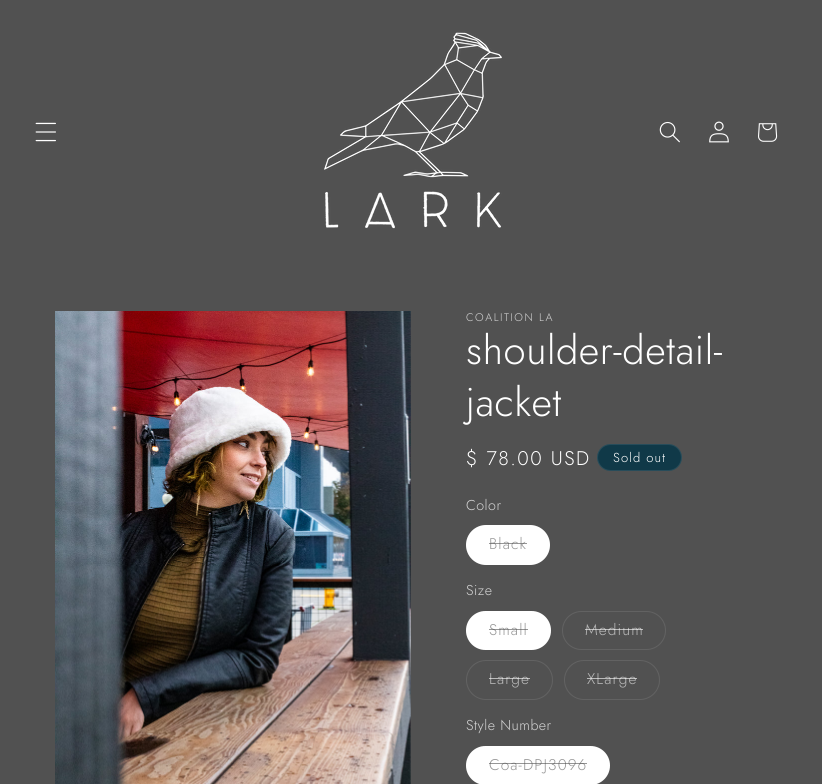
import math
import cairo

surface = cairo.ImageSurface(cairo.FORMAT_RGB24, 822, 784)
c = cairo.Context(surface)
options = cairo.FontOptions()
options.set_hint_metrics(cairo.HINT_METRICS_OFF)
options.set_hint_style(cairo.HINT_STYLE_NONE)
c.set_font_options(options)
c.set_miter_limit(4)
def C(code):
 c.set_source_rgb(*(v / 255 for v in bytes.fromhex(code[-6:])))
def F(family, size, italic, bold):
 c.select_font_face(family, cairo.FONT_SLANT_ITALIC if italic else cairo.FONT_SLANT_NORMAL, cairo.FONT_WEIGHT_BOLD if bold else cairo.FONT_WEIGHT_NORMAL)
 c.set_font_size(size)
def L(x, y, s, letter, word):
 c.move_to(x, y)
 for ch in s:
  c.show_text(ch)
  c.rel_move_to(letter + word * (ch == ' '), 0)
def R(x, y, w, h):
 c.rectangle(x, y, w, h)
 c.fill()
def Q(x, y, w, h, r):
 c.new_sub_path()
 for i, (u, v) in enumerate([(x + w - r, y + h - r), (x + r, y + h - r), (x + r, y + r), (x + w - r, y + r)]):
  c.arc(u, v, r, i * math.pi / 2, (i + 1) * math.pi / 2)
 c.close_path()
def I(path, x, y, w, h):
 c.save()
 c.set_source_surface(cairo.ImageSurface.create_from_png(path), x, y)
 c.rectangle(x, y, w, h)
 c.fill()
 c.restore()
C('515151')
c.paint()
I('1.png',35,122,21,20)
I('2.png',323,32,179,197)
I('3.png',659,121,21,22)
I('4.png',709,121,20,22)
I('5.png',758,123,20,19)
I('6.png',55,311,356,473)
F('Jost Light',11,0,0)
C('d4d4d4')
L(466,321,'COALITION LA',1.5,0)
F('Jost Light',40,0,0)
C('ffffff')
L(466,364,'shoulder-detail-',.6,0)
L(466,416,'jacket',.6,0)
F('Jost Light',19.75,0,0)
L(466,465,'$ 78.00 USD',1.5,0)
C('103948')
Q(597,444,85,27,13.5)
c.fill()
Q(597.5,444.5,84,26,13)
c.set_source_rgba(0.988,0.988,0.988,0.1)
c.set_line_width(1)
c.stroke()
F('Jost Light',13,0,0)
C('ffffff')
L(613,462,'Sold out',1.1,0)
F('Jost Light',14.25,0,0)
C('d4d4d4')
L(466,510,'Color',.5,0)
C('ffffff')
Q(466,525,84,40,20)
c.fill()
Q(466.5,525.5,83,39,19.5)
c.set_source_rgba(1,1,1,0.1)
c.stroke()
F('Jost Light',15.5,0,0)
C('979797')
L(489,549,'Black',1.1,0)
c.set_source_rgba(0.318,0.318,0.318,0.6)
R(489,543,38,1)
F('Jost Light',14.25,0,0)
C('d4d4d4')
L(466,595,'Size',.5,0)
C('ffffff')
Q(466,611,85,39,19.5)
c.fill()
Q(466.5,611.5,84,38,19)
c.set_source_rgba(1,1,1,0.1)
c.stroke()
F('Jost Light',15.5,0,0)
C('979797')
L(489,635,'Small',1.1,0)
c.set_source_rgba(0.318,0.318,0.318,0.6)
R(489,629,39,1)
Q(562.5,611.5,103,38,19)
C('626262')
c.stroke()
C('b9b9b9')
L(585,635,'Medium',1.1,0)
c.set_source_rgba(1,1,1,0.6)
R(585,629,58,1)
Q(466.5,660.5,86,39,19.5)
C('626262')
c.stroke()
C('b9b9b9')
L(489,684,'Large',1.1,0)
c.set_source_rgba(1,1,1,0.6)
R(489,678,41,1)
Q(564.5,660.5,95,39,19.5)
C('626262')
c.stroke()
C('b9b9b9')
L(587,684,'XLarge',1.1,0)
c.set_source_rgba(1,1,1,0.6)
R(587,678,50,1)
F('Jost Light',14.25,0,0)
C('d4d4d4')
L(466,730,'Style Number',.5,0)
C('ffffff')
Q(466,746,144,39,19.5)
c.fill()
Q(466.5,746.5,143,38,19)
c.set_source_rgba(1,1,1,0.1)
c.stroke()
F('Jost Light',15.5,0,0)
C('979797')
L(489,770,'Coa-DPJ3096',1.1,0)
c.set_source_rgba(0.318,0.318,0.318,0.6)
R(489,763,98,1)
surface.write_to_png('o.png')
